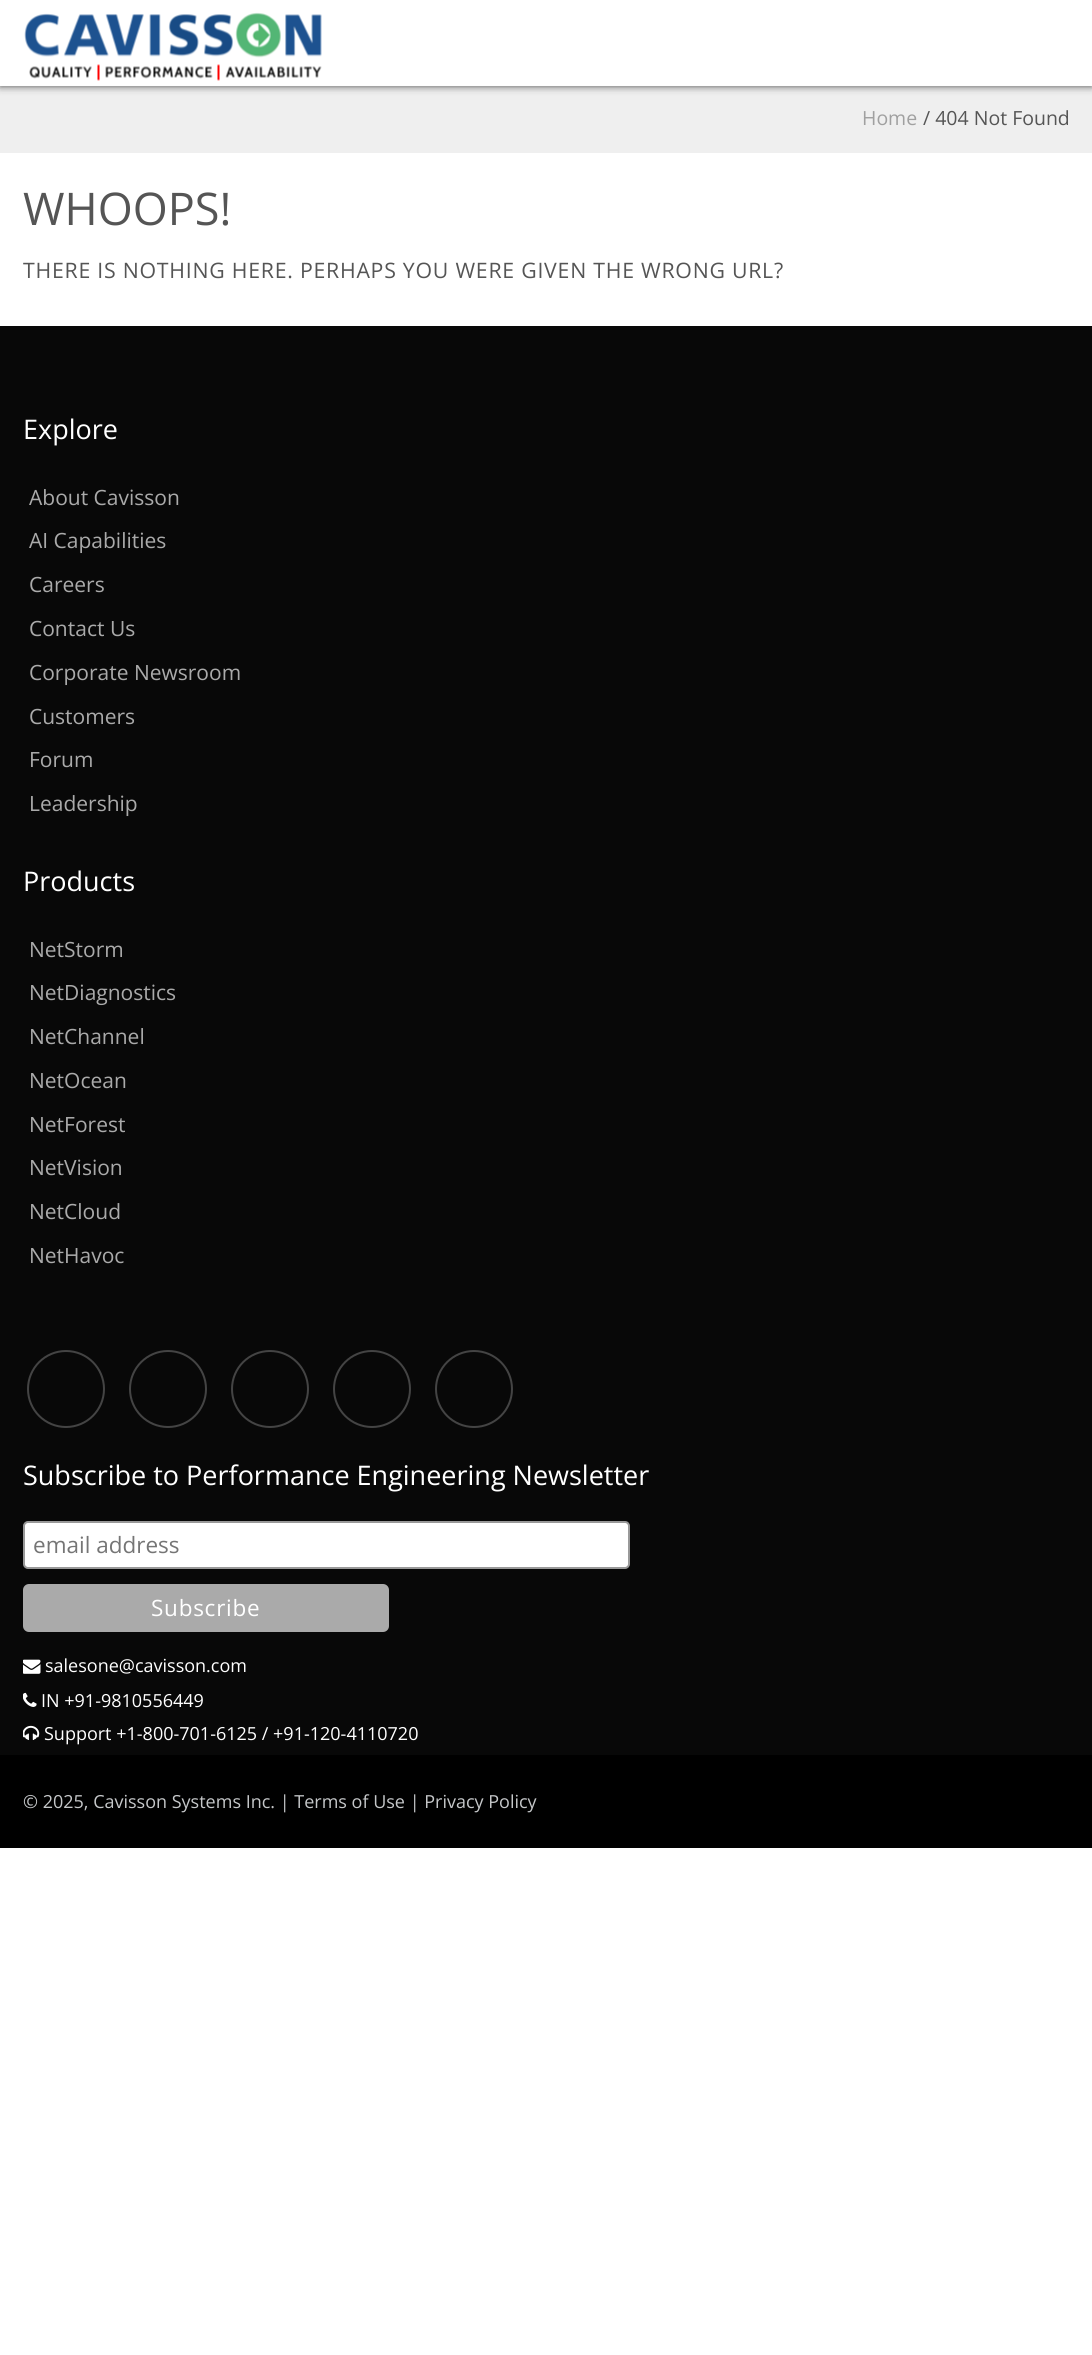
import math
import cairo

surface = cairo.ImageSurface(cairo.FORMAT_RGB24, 1092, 2355)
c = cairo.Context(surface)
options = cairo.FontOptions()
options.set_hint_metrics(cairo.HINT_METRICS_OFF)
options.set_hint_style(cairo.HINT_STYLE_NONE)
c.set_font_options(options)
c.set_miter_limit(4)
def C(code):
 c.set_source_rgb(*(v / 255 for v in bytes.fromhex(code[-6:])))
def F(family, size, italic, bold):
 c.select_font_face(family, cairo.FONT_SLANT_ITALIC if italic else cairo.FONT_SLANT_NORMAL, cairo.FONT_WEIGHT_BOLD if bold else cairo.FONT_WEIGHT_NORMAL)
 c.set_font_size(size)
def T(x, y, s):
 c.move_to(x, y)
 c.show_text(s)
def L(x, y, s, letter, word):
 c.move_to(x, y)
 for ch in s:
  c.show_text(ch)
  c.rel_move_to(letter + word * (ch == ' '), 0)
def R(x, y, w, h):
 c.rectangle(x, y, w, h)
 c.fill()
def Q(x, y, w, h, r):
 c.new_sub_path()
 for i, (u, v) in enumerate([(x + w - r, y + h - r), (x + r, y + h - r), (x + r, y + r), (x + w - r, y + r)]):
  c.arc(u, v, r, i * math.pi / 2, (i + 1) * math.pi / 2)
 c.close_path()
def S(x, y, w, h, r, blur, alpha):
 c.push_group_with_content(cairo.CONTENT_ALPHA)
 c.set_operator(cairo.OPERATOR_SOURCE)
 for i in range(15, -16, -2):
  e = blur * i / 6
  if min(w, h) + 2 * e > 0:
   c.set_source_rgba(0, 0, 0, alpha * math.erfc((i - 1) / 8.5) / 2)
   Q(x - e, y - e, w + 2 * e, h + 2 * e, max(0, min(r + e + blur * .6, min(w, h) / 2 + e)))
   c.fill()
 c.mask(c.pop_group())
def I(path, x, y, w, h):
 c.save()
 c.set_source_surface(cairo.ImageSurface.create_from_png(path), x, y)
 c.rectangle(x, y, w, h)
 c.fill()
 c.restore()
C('ffffff')
c.paint()
C('efefef')
R(0,86,1092,67)
c.save()
c.set_fill_rule(cairo.FILL_RULE_EVEN_ODD)
c.new_path()
c.move_to(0,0)
c.line_to(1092,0)
c.line_to(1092,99)
c.line_to(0,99)
c.close_path()
c.move_to(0,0)
c.line_to(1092,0)
c.line_to(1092,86)
c.line_to(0,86)
c.close_path()
c.clip()
C('000000')
S(0,0,1092,86,0,4,.69)
c.restore()
c.set_source_rgba(0.996,0.996,0.996,0.98)
R(0,85,1092,1)
I('1.png',24,12,298,69)
F('Open Sans',19.5,0,0)
C('a0a0a0')
T(862,125,'Home')
C('555555')
T(923,125,'/ 404 Not Found')
F('Open Sans',45,0,0)
T(23,225,'WHOOPS!')
F('Open Sans',21.3,0,0)
L(23,278,'THERE IS NOTHING HERE. PERHAPS YOU WERE GIVEN THE WRONG URL?',.75,0)
C('080808')
R(0,326,1092,1429)
F('Open Sans',27,0,0)
C('ffffff')
T(23,439,'Explore')
F('Open Sans',21,0,0)
C('aaaaaa')
T(29,505,'About Cavisson')
T(29,548,'AI Capabilities')
T(29,592,'Careers')
T(29,636,'Contact Us')
T(29,680,'Corporate Newsroom')
T(29,724,'Customers')
T(29,767,'Forum')
T(29,811,'Leadership')
F('Open Sans',27,0,0)
C('ffffff')
T(23,891,'Products')
F('Open Sans',21,0,0)
C('aaaaaa')
T(29,957,'NetStorm')
T(29,1000,'NetDiagnostics')
T(29,1044,'NetChannel')
T(29,1088,'NetOcean')
T(29,1132,'NetForest')
T(29,1175,'NetVision')
T(29,1219,'NetCloud')
T(29,1263,'NetHavoc')
c.new_path()
c.arc(66,1389,38,0,2 * math.pi)
C('444444')
c.stroke()
c.arc(168,1389,38,0,2 * math.pi)
c.stroke()
c.arc(270,1389,38,0,2 * math.pi)
c.stroke()
c.arc(372,1389,38,0,2 * math.pi)
c.stroke()
c.arc(474,1389,38,0,2 * math.pi)
c.stroke()
F('Open Sans',27,0,0)
C('ffffff')
T(23,1485,'Subscribe to Performance Engineering Newsletter')
Q(24,1522,605,46,4)
c.fill_preserve()
C('999999')
c.stroke()
F('Open Sans',22.5,0,0)
C('757575')
T(33,1553,'email address')
C('aaaaaa')
Q(23,1584,366,48,6)
c.fill()
C('ffffff')
L(151,1616,'Subscribe',.75,0)
I('2.png',23,1659,18,15)
F('Open Sans',18,0,0)
T(45,1672,'salesone@cavisson.com')
I('3.png',23,1692,14,15)
T(41,1707,'IN +91-9810556449')
I('4.png',23,1725,17,15)
T(44,1740,'Support +1-800-701-6125 / +91-120-4110720')
C('000000')
R(0,1755,1092,93)
C('c5c7c9')
T(23,1808,'© 2025, Cavisson Systems Inc. | Terms of Use | Privacy Policy')
surface.write_to_png('o.png')
